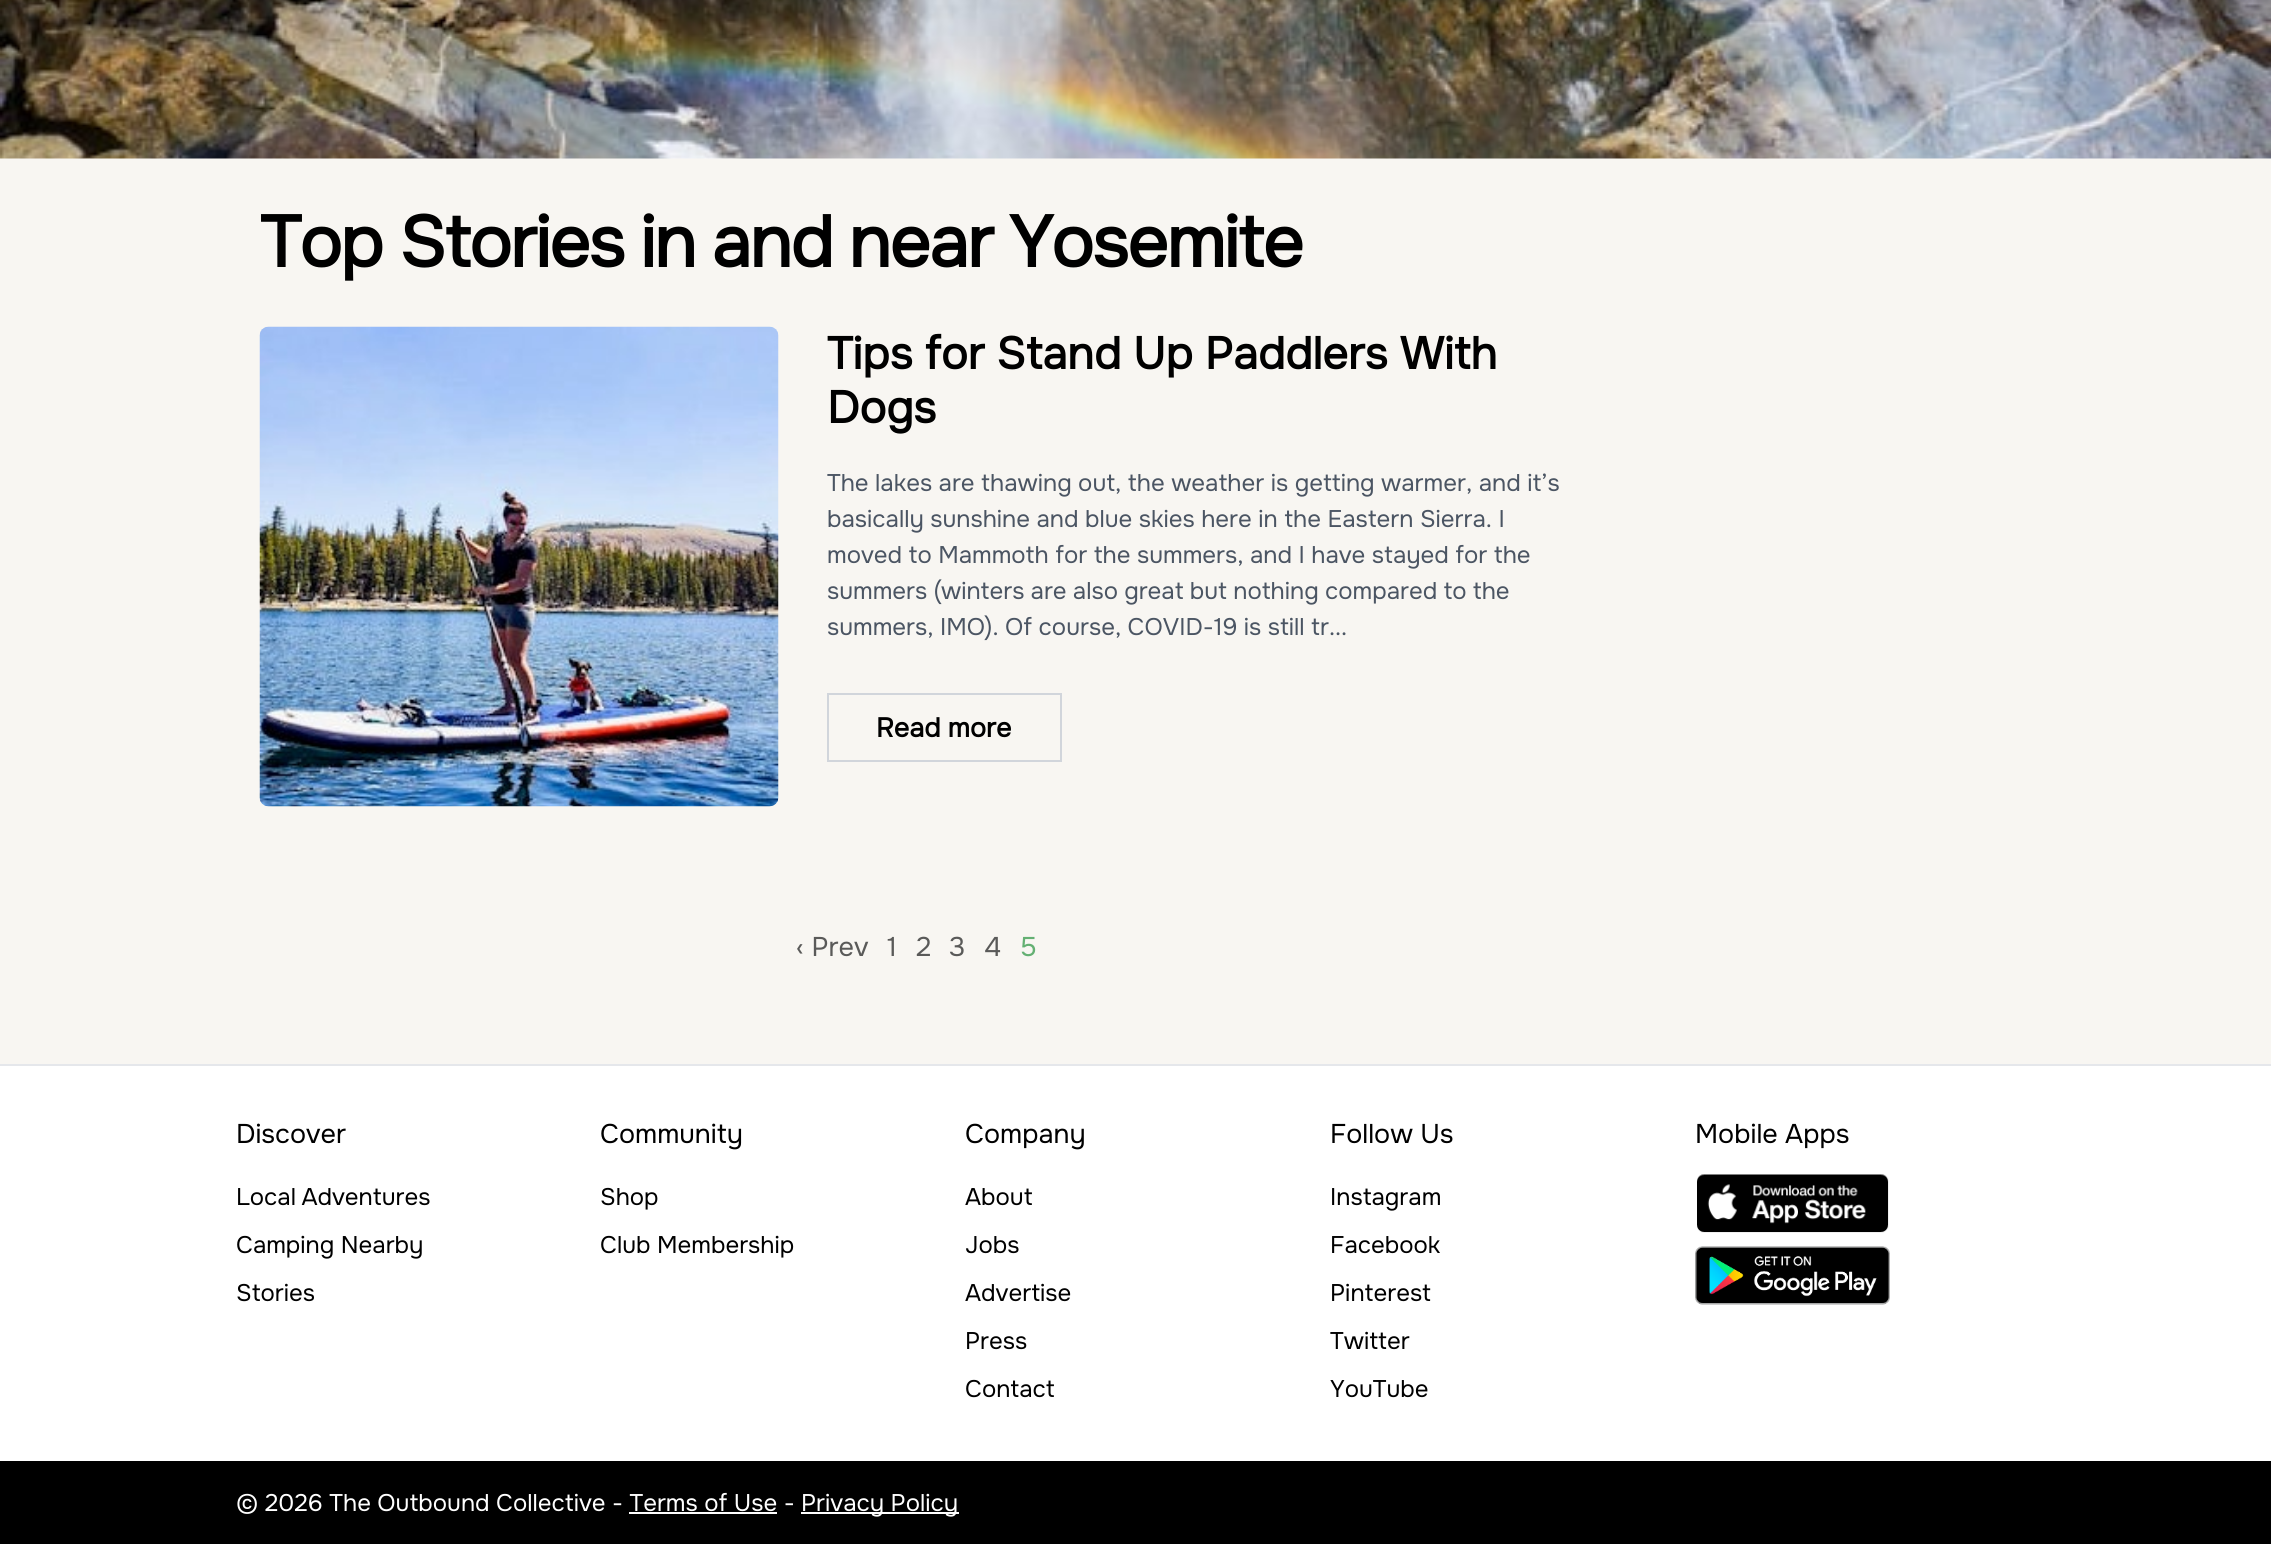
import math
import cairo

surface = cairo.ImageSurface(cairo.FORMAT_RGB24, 2271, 1544)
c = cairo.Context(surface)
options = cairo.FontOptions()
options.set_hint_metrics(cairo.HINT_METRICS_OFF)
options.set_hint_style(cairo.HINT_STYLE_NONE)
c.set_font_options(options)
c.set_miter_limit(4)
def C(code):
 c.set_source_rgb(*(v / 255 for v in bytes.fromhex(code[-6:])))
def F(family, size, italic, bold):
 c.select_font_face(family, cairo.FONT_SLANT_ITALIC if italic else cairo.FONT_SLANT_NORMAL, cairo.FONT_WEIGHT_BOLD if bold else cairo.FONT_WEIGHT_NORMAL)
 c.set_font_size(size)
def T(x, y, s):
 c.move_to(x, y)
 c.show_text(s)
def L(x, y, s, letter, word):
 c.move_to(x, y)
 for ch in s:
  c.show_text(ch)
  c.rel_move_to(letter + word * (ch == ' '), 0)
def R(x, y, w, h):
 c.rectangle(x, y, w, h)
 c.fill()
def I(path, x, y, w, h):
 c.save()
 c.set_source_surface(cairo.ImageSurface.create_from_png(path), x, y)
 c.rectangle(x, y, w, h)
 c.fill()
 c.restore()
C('f8f6f2')
c.paint()
I('1.png',0,0,2271,159)
F('Onest',72,0,1)
C('000000')
L(260,267,'Top',-1.8,0)
L(399,267,'Stories in and near Yosemite',-1.8,-1)
I('2.png',259,326,520,481)
F('Onest',45,0,1)
L(827,369,'Tips for Stand Up Paddlers With',0,-.25)
T(827,423,'Dogs')
F('Onest',24,0,0)
C('4b5563')
T(827,491,'The lakes are thawing out, the weather is getting warmer, and it’s')
T(827,527,'basically sunshine and blue skies here in the Eastern Sierra. I')
T(827,563,'moved to Mammoth for the summers, and I have stayed for the')
L(827,599,'summers (winters are also great but nothing compared to the',0,-.25)
T(827,635,'summers, IMO). Of course, COVID-19 is still tr...')
c.rectangle(828,694,233,67)
C('d1d5db')
c.stroke()
F('Onest',27,0,1)
C('000000')
T(876,737,'Read more')
F('Onest',27,0,0)
C('5a5a59')
T(796,956,'‹ Prev')
T(887,956,'1')
T(916,956,'2')
T(949,956,'3')
T(984,956,'4')
C('64b073')
T(1020,956,'5')
C('ffffff')
R(0,1066,2271,395)
C('e5e7eb')
R(0,1064,2271,2)
C('000000')
T(236,1143,'Discover')
F('Onest',24,0,0)
L(236,1205,'Local Adventures',0,-1)
T(236,1253,'Camping Nearby')
T(236,1301,'Stories')
F('Onest',27,0,0)
T(600,1143,'Community')
F('Onest',24,0,0)
T(600,1205,'Shop')
T(600,1253,'Club Membership')
F('Onest',27,0,0)
T(965,1143,'Company')
F('Onest',24,0,0)
T(965,1205,'About')
T(965,1253,'Jobs')
T(965,1301,'Advertise')
T(965,1349,'Press')
T(965,1397,'Contact')
F('Onest',27,0,0)
T(1330,1143,'Follow Us')
F('Onest',24,0,0)
T(1330,1205,'Instagram')
T(1330,1253,'Facebook')
T(1330,1301,'Pinterest')
T(1330,1349,'Twitter')
T(1330,1397,'YouTube')
F('Onest',27,0,0)
T(1695,1143,'Mobile Apps')
I('3.png',1697,1174,192,59)
I('4.png',1695,1246,195,59)
R(0,1461,2271,83)
F('Onest',24,0,0)
C('ffffff')
T(236,1511,'© 2026 The Outbound Collective - Terms of Use -')
R(801,1512,158,2)
T(801,1511,'Privacy Policy')
R(629,1512,148,2)
surface.write_to_png('o.png')
